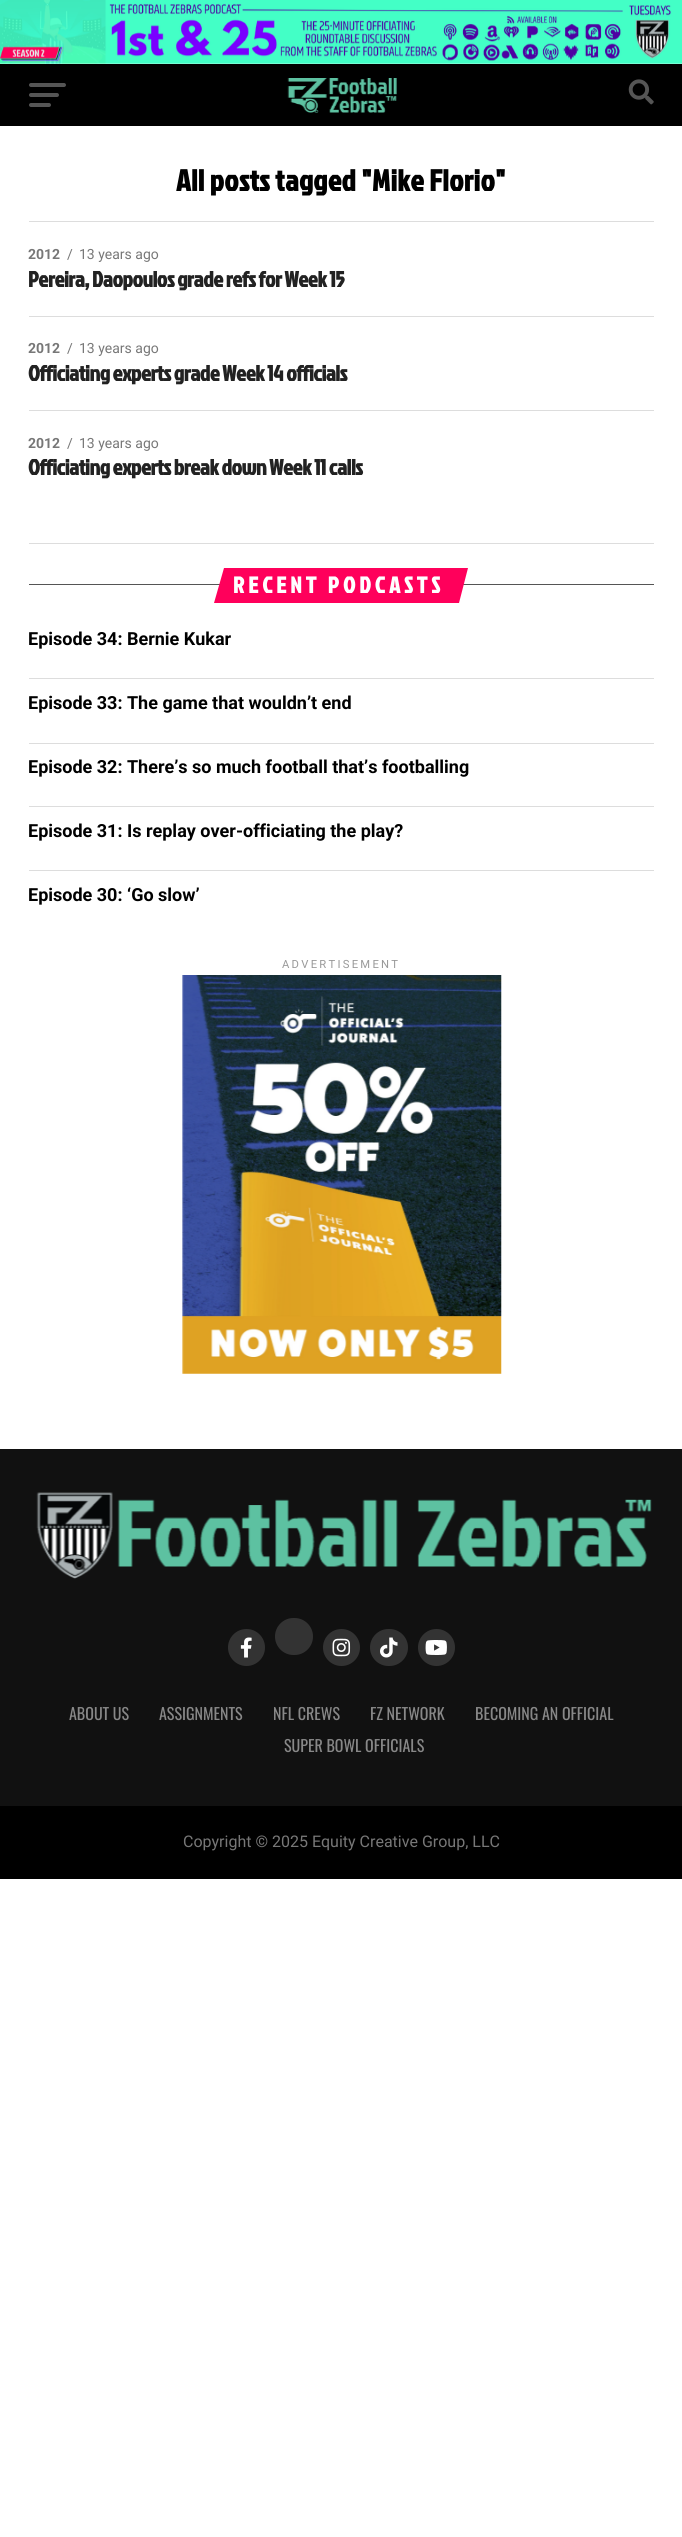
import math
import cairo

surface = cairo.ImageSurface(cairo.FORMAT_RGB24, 682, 2537)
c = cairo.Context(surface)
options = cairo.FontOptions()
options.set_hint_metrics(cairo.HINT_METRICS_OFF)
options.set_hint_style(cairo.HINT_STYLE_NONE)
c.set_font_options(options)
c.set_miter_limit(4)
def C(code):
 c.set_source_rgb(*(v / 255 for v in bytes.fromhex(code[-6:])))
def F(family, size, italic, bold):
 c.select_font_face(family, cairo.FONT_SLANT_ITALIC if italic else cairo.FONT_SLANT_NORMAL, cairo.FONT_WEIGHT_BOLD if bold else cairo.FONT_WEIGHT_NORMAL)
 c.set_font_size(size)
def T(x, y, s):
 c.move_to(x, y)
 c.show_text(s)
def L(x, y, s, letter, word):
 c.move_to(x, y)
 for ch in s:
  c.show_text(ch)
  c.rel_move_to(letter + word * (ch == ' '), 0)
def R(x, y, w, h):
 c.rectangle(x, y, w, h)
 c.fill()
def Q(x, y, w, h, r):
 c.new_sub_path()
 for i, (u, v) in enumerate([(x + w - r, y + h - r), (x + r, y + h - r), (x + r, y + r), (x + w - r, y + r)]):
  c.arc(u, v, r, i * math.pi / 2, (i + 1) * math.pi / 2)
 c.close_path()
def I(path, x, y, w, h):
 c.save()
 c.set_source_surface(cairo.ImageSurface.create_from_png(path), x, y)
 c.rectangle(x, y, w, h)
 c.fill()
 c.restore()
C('ffffff')
c.paint()
I('1.png',0,0,682,64)
C('000000')
R(0,64,682,62)
C('555555')
Q(29,83,37,4,2)
c.fill()
Q(29,93,30,4,2)
c.fill()
Q(29,103,22,4,2)
c.fill()
I('2.png',287,78,110,35)
I('3.png',628,79,26,26)
F('Jockey One',30,0,1)
C('000000')
L(176,191,'All posts tagged "Mike Florio"',.3,0)
C('dddddd')
R(29,221,625,1)
F('Roboto',14,0,1)
C('777777')
T(28,259,'2012')
F('Roboto',14,0,0)
T(67,259,'/')
T(79,259,'13 years ago')
F('Jockey One',22,0,1)
C('222222')
L(28,287,'Pereira, Daopoulos grade refs for Week 15',-.45,0)
C('dddddd')
R(29,316,625,1)
F('Roboto',14,0,1)
C('777777')
T(28,353,'2012')
F('Roboto',14,0,0)
T(67,353,'/')
T(79,353,'13 years ago')
F('Jockey One',22,0,1)
C('222222')
L(28,381,'Officiating experts grade Week 14 officials',-.45,0)
C('dddddd')
R(29,410,625,1)
F('Roboto',14,0,1)
C('777777')
T(28,448,'2012')
F('Roboto',14,0,0)
T(67,448,'/')
T(79,448,'13 years ago')
F('Jockey One',22,0,1)
C('222222')
L(28,475,'Officiating experts break down Week 11 calls',-.45,0)
C('dddddd')
R(29,543,625,1)
C('555555')
R(29,584,625,1)
C('ff005b')
c.new_path()
c.move_to(224,568)
c.line_to(468,568)
c.line_to(459,603)
c.line_to(214,603)
c.close_path()
c.fill()
F('Jockey One',22.75,0,1)
C('ffffff')
L(233,593,'RECENT PODCASTS',4,0)
F('Roboto',18,0,1)
C('000000')
T(28,645,'Episode 34: Bernie Kukar')
C('dddddd')
R(29,678,625,1)
C('000000')
T(28,709,'Episode 33: The game that wouldn’t end')
C('dddddd')
R(29,743,625,1)
C('000000')
T(28,773,'Episode 32: There’s so much football that’s footballing')
C('dddddd')
R(29,806,625,1)
C('000000')
T(28,837,'Episode 31: Is replay over-officiating the play?')
C('dddddd')
R(29,870,625,1)
C('000000')
T(28,901,'Episode 30: ‘Go slow’')
F('Roboto',11.25,0,0)
C('999999')
L(282,968,'ADVERTISEMENT',2.25,0)
I('4.png',182,975,320,399)
C('111111')
R(0,1449,682,357)
I('5.png',36,1492,616,87)
C('333333')
c.arc(246.5,1647.5,18.5,0,2 * math.pi)
c.fill()
I('6.png',240,1637,12,21)
Q(275,1618,38,37,18.5)
c.fill()
c.arc(341.5,1647.5,18.5,0,2 * math.pi)
c.fill()
I('7.png',332,1638,19,19)
Q(370,1629,38,37,18.5)
c.fill()
I('8.png',380,1637,18,21)
c.arc(436.5,1647.5,18.5,0,2 * math.pi)
c.fill()
I('9.png',425,1640,22,15)
F('Oswald',16,0,0)
C('888888')
T(69,1720,'ABOUT US')
T(159,1720,'ASSIGNMENTS')
T(273,1720,'NFL CREWS')
T(370,1720,'FZ NETWORK')
T(475,1720,'BECOMING AN OFFICIAL')
T(284,1752,'SUPER BOWL OFFICIALS')
C('000000')
R(0,1806,682,73)
F('Roboto',16,0,0)
C('777777')
T(183,1847,'Copyright © 2025 Equity Creative Group, LLC')
surface.write_to_png('o.png')
